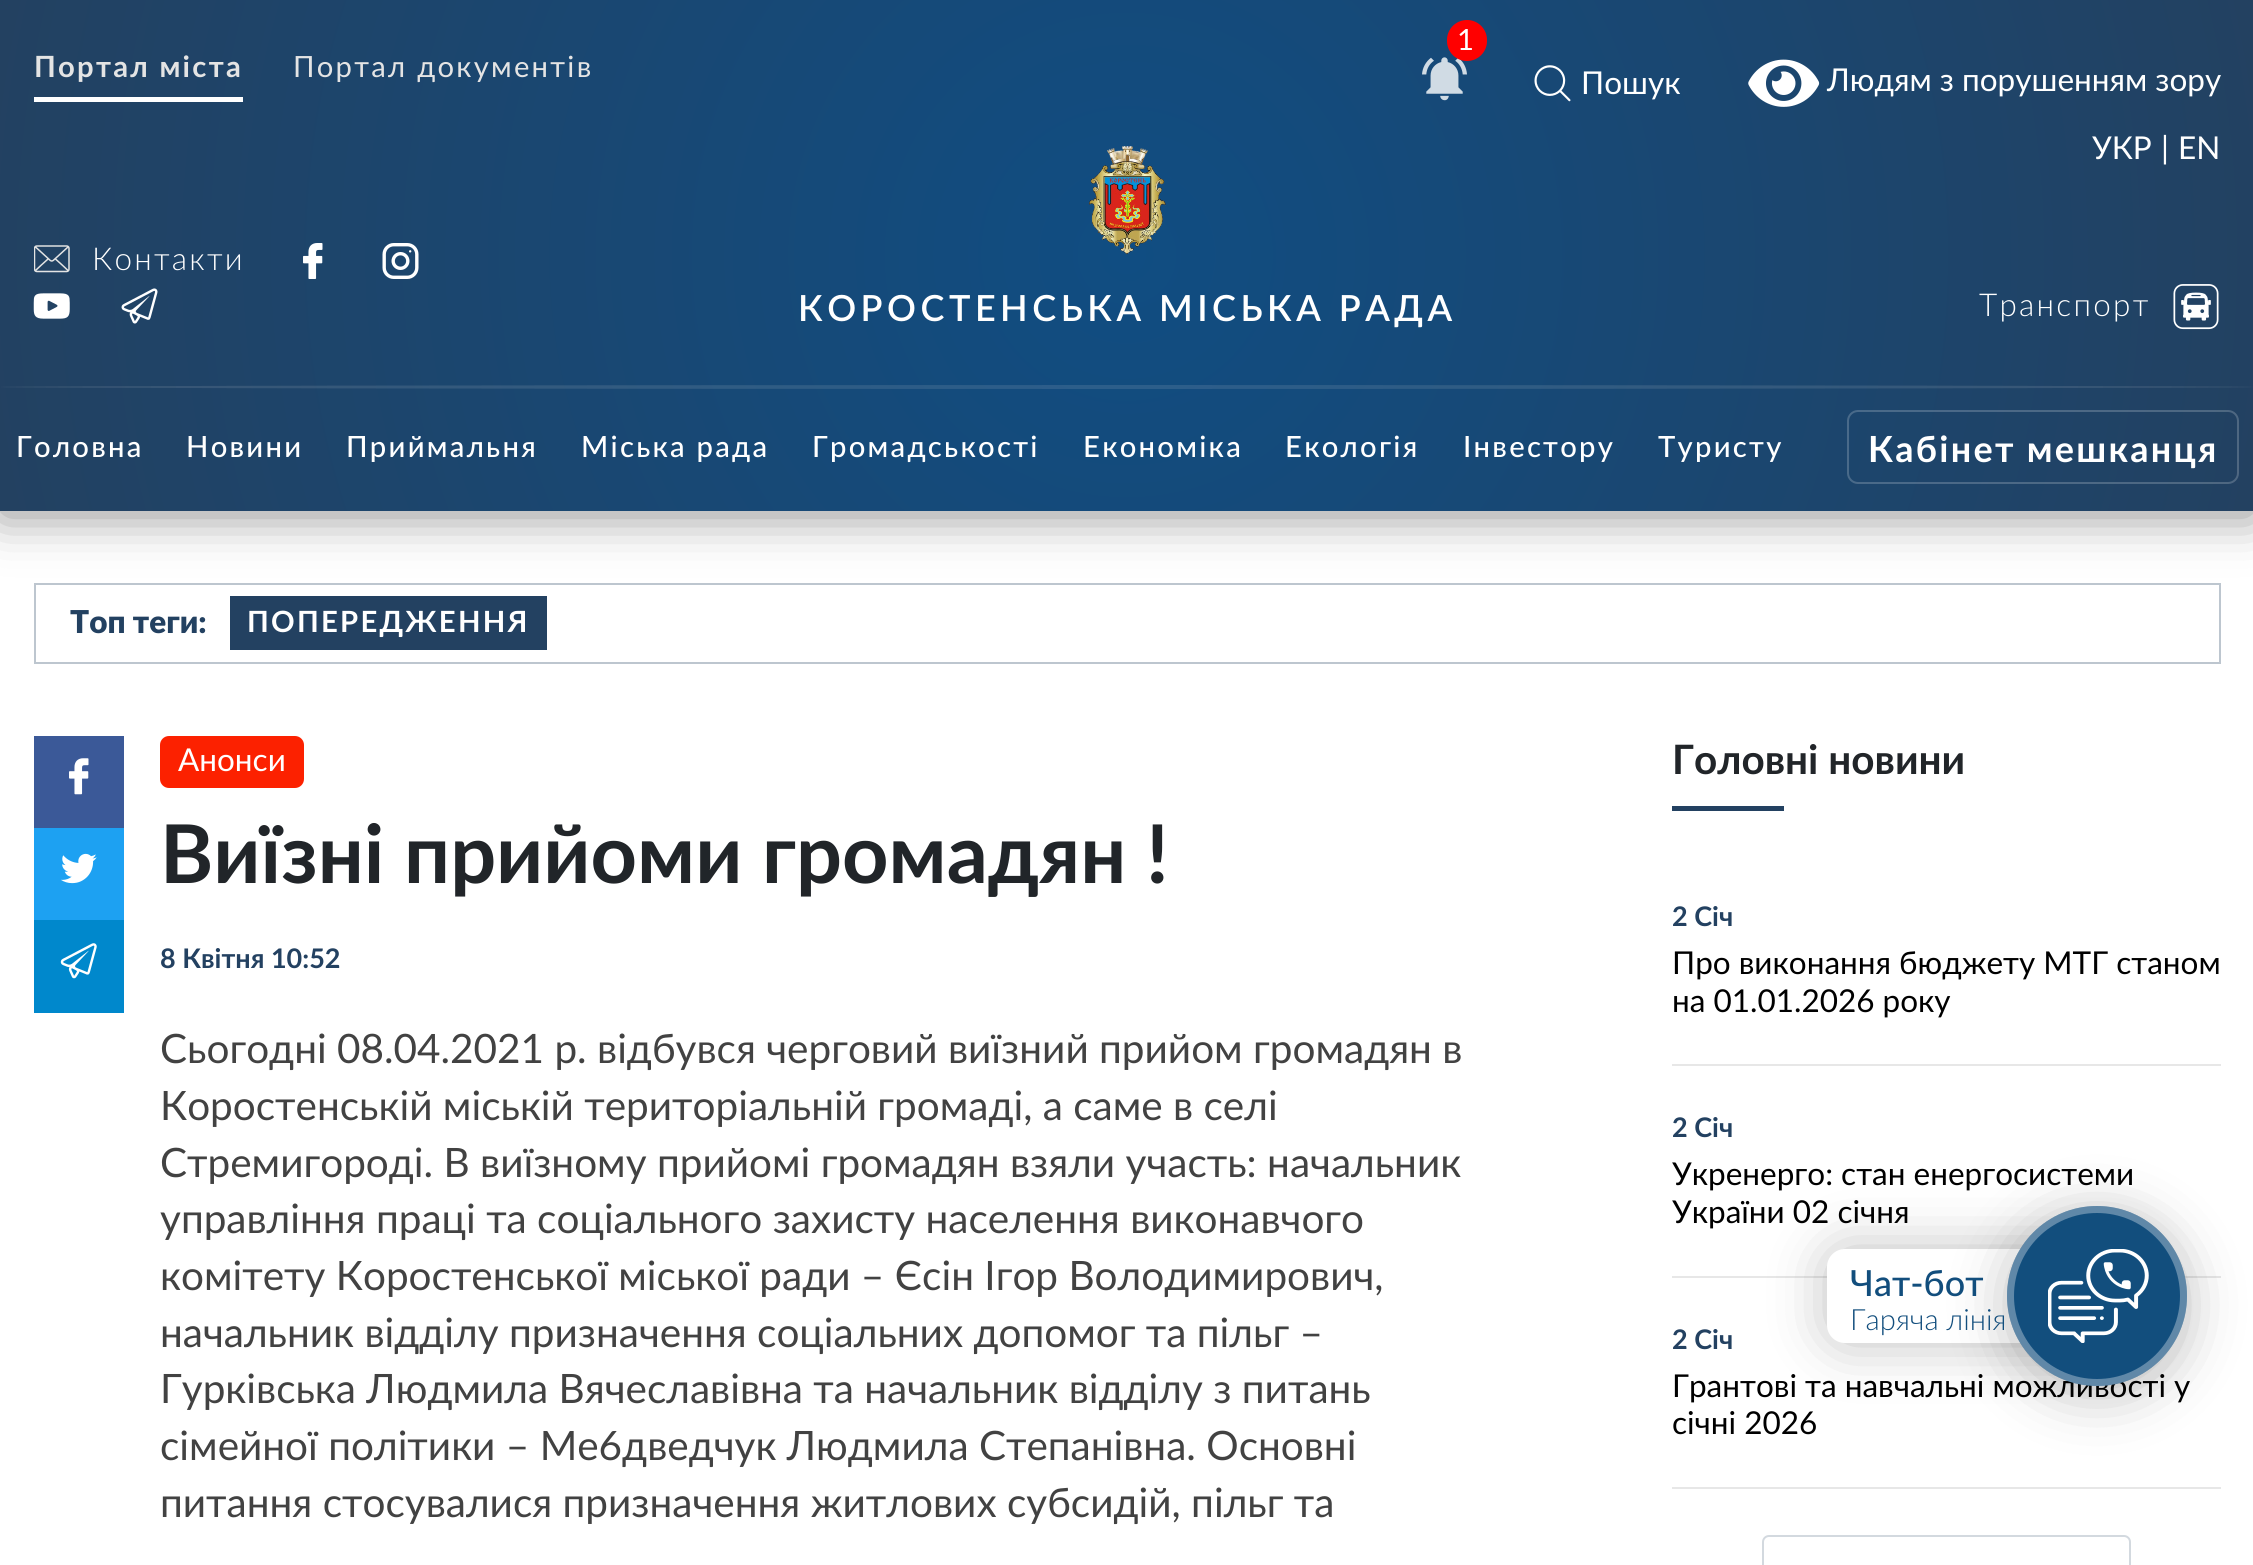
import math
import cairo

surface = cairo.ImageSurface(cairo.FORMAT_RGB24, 2253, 1565)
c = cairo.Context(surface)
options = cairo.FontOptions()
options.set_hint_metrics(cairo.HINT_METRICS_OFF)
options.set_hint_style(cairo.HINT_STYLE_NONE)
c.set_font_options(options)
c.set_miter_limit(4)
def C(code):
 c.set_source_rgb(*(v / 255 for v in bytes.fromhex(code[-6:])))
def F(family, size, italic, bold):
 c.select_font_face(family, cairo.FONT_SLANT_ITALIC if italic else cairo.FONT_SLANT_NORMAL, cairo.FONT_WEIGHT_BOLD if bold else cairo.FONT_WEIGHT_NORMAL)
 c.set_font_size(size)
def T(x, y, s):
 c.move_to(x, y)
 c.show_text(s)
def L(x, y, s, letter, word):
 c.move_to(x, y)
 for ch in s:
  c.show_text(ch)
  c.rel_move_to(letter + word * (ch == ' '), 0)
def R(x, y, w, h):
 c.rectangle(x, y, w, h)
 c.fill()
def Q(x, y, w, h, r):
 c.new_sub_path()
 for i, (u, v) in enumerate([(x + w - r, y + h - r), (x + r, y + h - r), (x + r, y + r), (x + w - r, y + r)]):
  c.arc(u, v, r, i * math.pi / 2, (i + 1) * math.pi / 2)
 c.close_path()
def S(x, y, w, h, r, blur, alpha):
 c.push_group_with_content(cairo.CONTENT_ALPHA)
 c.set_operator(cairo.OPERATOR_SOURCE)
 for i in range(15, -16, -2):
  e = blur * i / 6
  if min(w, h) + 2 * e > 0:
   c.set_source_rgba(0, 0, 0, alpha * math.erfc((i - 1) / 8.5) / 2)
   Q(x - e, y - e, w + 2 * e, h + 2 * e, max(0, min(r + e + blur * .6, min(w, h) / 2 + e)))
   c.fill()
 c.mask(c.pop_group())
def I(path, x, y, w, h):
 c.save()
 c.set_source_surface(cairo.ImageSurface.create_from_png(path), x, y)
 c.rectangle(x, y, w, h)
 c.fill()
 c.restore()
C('ffffff')
c.paint()
C('000000')
S(0,5,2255,510,0,25,.45)
gradient = cairo.RadialGradient(1127,255,0,1127,255,1156)
gradient.add_color_stop_rgba(0,0.063,0.302,0.51,1)
gradient.add_color_stop_rgba(1,0.137,0.255,0.38,1)
c.set_source(gradient)
R(0,0,2253,511)
C('ffffff')
R(34,97,209,5)
F('Lato',29.25,0,1)
C('e4e4e4')
L(34,77,'Портал міста',2.25,0)
F('Lato',29.25,0,0)
L(293,77,'Портал документів',2.25,0)
I('1.png',1422,57,45,44)
C('ff0000')
Q(1447,20,40,41,20)
c.fill()
C('ffffff')
T(1457,50,'1')
I('2.png',1534,65,37,37)
F('Lato',31.5,0,0)
T(1581,94,'Пошук')
I('3.png',1748,59,72,48)
T(1827,91,'Людям з порушенням зору')
T(2092,159,'УКР')
T(2161,159,'|')
T(2178,159,'EN')
I('4.png',34,245,36,28)
F('Lato Light',31.5,0,0)
L(92,270,'Контакти',2.25,0)
I('5.png',303,243,20,36)
I('6.png',382,243,37,36)
I('7.png',33,293,37,26)
I('8.png',121,288,37,36)
I('9.png',1089,146,77,109)
F('Lato SemiBold',36,0,0)
L(798,321,'КОРОСТЕНСЬКА МІСЬКА РАДА',4.5,0)
F('Lato Light',31.5,0,0)
L(1979,316,'Транспорт',2.25,0)
I('10.png',2173,284,46,46)
c.set_source_rgba(0.847,0.847,0.847,0.13)
c.new_path()
c.move_to(1127,385)
c.curve_to(1749.5,385,2254,386,2254,387)
c.curve_to(2254,388,1749.5,389,1127,389)
c.curve_to(504.5,389,0,388,0,387)
c.curve_to(0,386,504.5,385,1127,385)
c.close_path()
c.fill()
F('Lato Medium',29.25,0,0)
C('ffffff')
L(16,457,'Головна',2.25,0)
L(186,457,'Новини',2.25,0)
L(346,457,'Приймальня',2.25,0)
L(581,457,'Міська рада',2.25,0)
L(812,457,'Громадськості',2.25,0)
L(1083,457,'Економіка',2.25,0)
L(1285,457,'Екологія',2.25,0)
L(1463,457,'Інвестору',2.25,0)
L(1658,457,'Туристу',2.25,0)
Q(1848,411,390,72,10)
c.set_source_rgba(1,1,1,0.2)
c.stroke()
F('Lato',36,0,1)
C('ffffff')
L(1868,462,'Кабінет мешканця',2.25,0)
c.rectangle(35,584,2185,79)
C('bdc6cf')
c.stroke()
F('Lato Black',31.5,0,0)
C('234161')
T(70,633,'Топ теги:')
R(230,596,317,54)
F('Lato',29.25,0,1)
C('ffffff')
L(247,632,'ПОПЕРЕДЖЕННЯ',2.25,0)
C('3b5998')
R(34,736,90,92)
I('11.png',69,758,20,37)
C('1da1f2')
R(34,828,90,92)
I('12.png',61,853,36,31)
C('0088cc')
R(34,920,90,93)
I('13.png',60,943,37,36)
C('fc2100')
Q(160,736,144,52,9)
c.fill()
F('Lato',31.5,0,0)
C('ffffff')
T(178,771,'Анонси')
F('Lato',81,0,1)
C('212529')
T(160,883,'Виїзні прийоми громадян !')
F('Lato',27,0,1)
C('234161')
T(160,968,'8 Квітня 10:52')
F('Lato',40.5,0,0)
C('424242')
T(160,1063,'Сьогодні 08.04.2021 р. відбувся черговий виїзний прийом громадян в')
T(160,1120,'Коростенській міській територіальній громаді, а саме в селі')
T(160,1177,'Стремигороді. В виїзному прийомі громадян взяли участь: начальник')
T(160,1233,'управління праці та соціального захисту населення виконавчого')
T(160,1290,'комітету Коростенської міської ради – Єсін Ігор Володимирович,')
T(160,1347,'начальник відділу призначення соціальних допомог та пільг –')
T(160,1403,'Гурківська Людмила Вячеславівна та начальник відділу з питань')
T(160,1460,'сімейної політики – Ме6дведчук Людмила Степанівна. Основні')
T(160,1517,'питання стосувалися призначення житлових субсидій, пільг та')
F('Lato',40.5,0,1)
C('212529')
T(1672,774,'Головні новини')
C('234161')
R(1672,806,112,5)
C('e7e7e7')
R(1672,1064,549,2)
F('Lato',27,0,1)
C('234161')
T(1672,926,'2 Січ')
F('Lato',31.5,0,0)
C('000000')
T(1672,974,'Про виконання бюджету МТГ станом')
T(1672,1012,'на 01.01.2026 року')
C('e7e7e7')
R(1672,1276,549,2)
F('Lato',27,0,1)
C('234161')
T(1672,1137,'2 Січ')
F('Lato',31.5,0,0)
C('000000')
T(1672,1185,'Укренерго: стан енергосистеми')
T(1672,1223,'України 02 січня')
C('e7e7e7')
R(1672,1487,549,2)
F('Lato',27,0,1)
C('234161')
T(1672,1349,'2 Січ')
F('Lato',31.5,0,0)
C('000000')
T(1672,1397,'Грантові та навчальні можливості у')
T(1672,1434,'січні 2026')
Q(1763,1536,367,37,6)
C('d3d9df')
c.stroke()
C('000000')
S(1827,1249,315,94,18,28,.25)
C('ffffff')
Q(1827,1249,315,94,18)
c.fill()
C('000000')
S(2007,1215,180,180,90,28,.25)
C('124e7d')
c.arc(2097,1296,90,0,2 * math.pi)
c.fill()
c.arc(2097,1296,86.5,0,2 * math.pi)
c.set_source_rgba(1,1,1,0.33)
c.set_line_width(7)
c.stroke()
I('14.png',2048,1249,101,94)
F('Lato Medium',36,0,0)
C('124e7d')
T(1850,1296,'Чат-бот')
F('Lato Light',29.25,0,0)
T(1850,1330,'Гаряча лінія')
surface.write_to_png('o.png')
